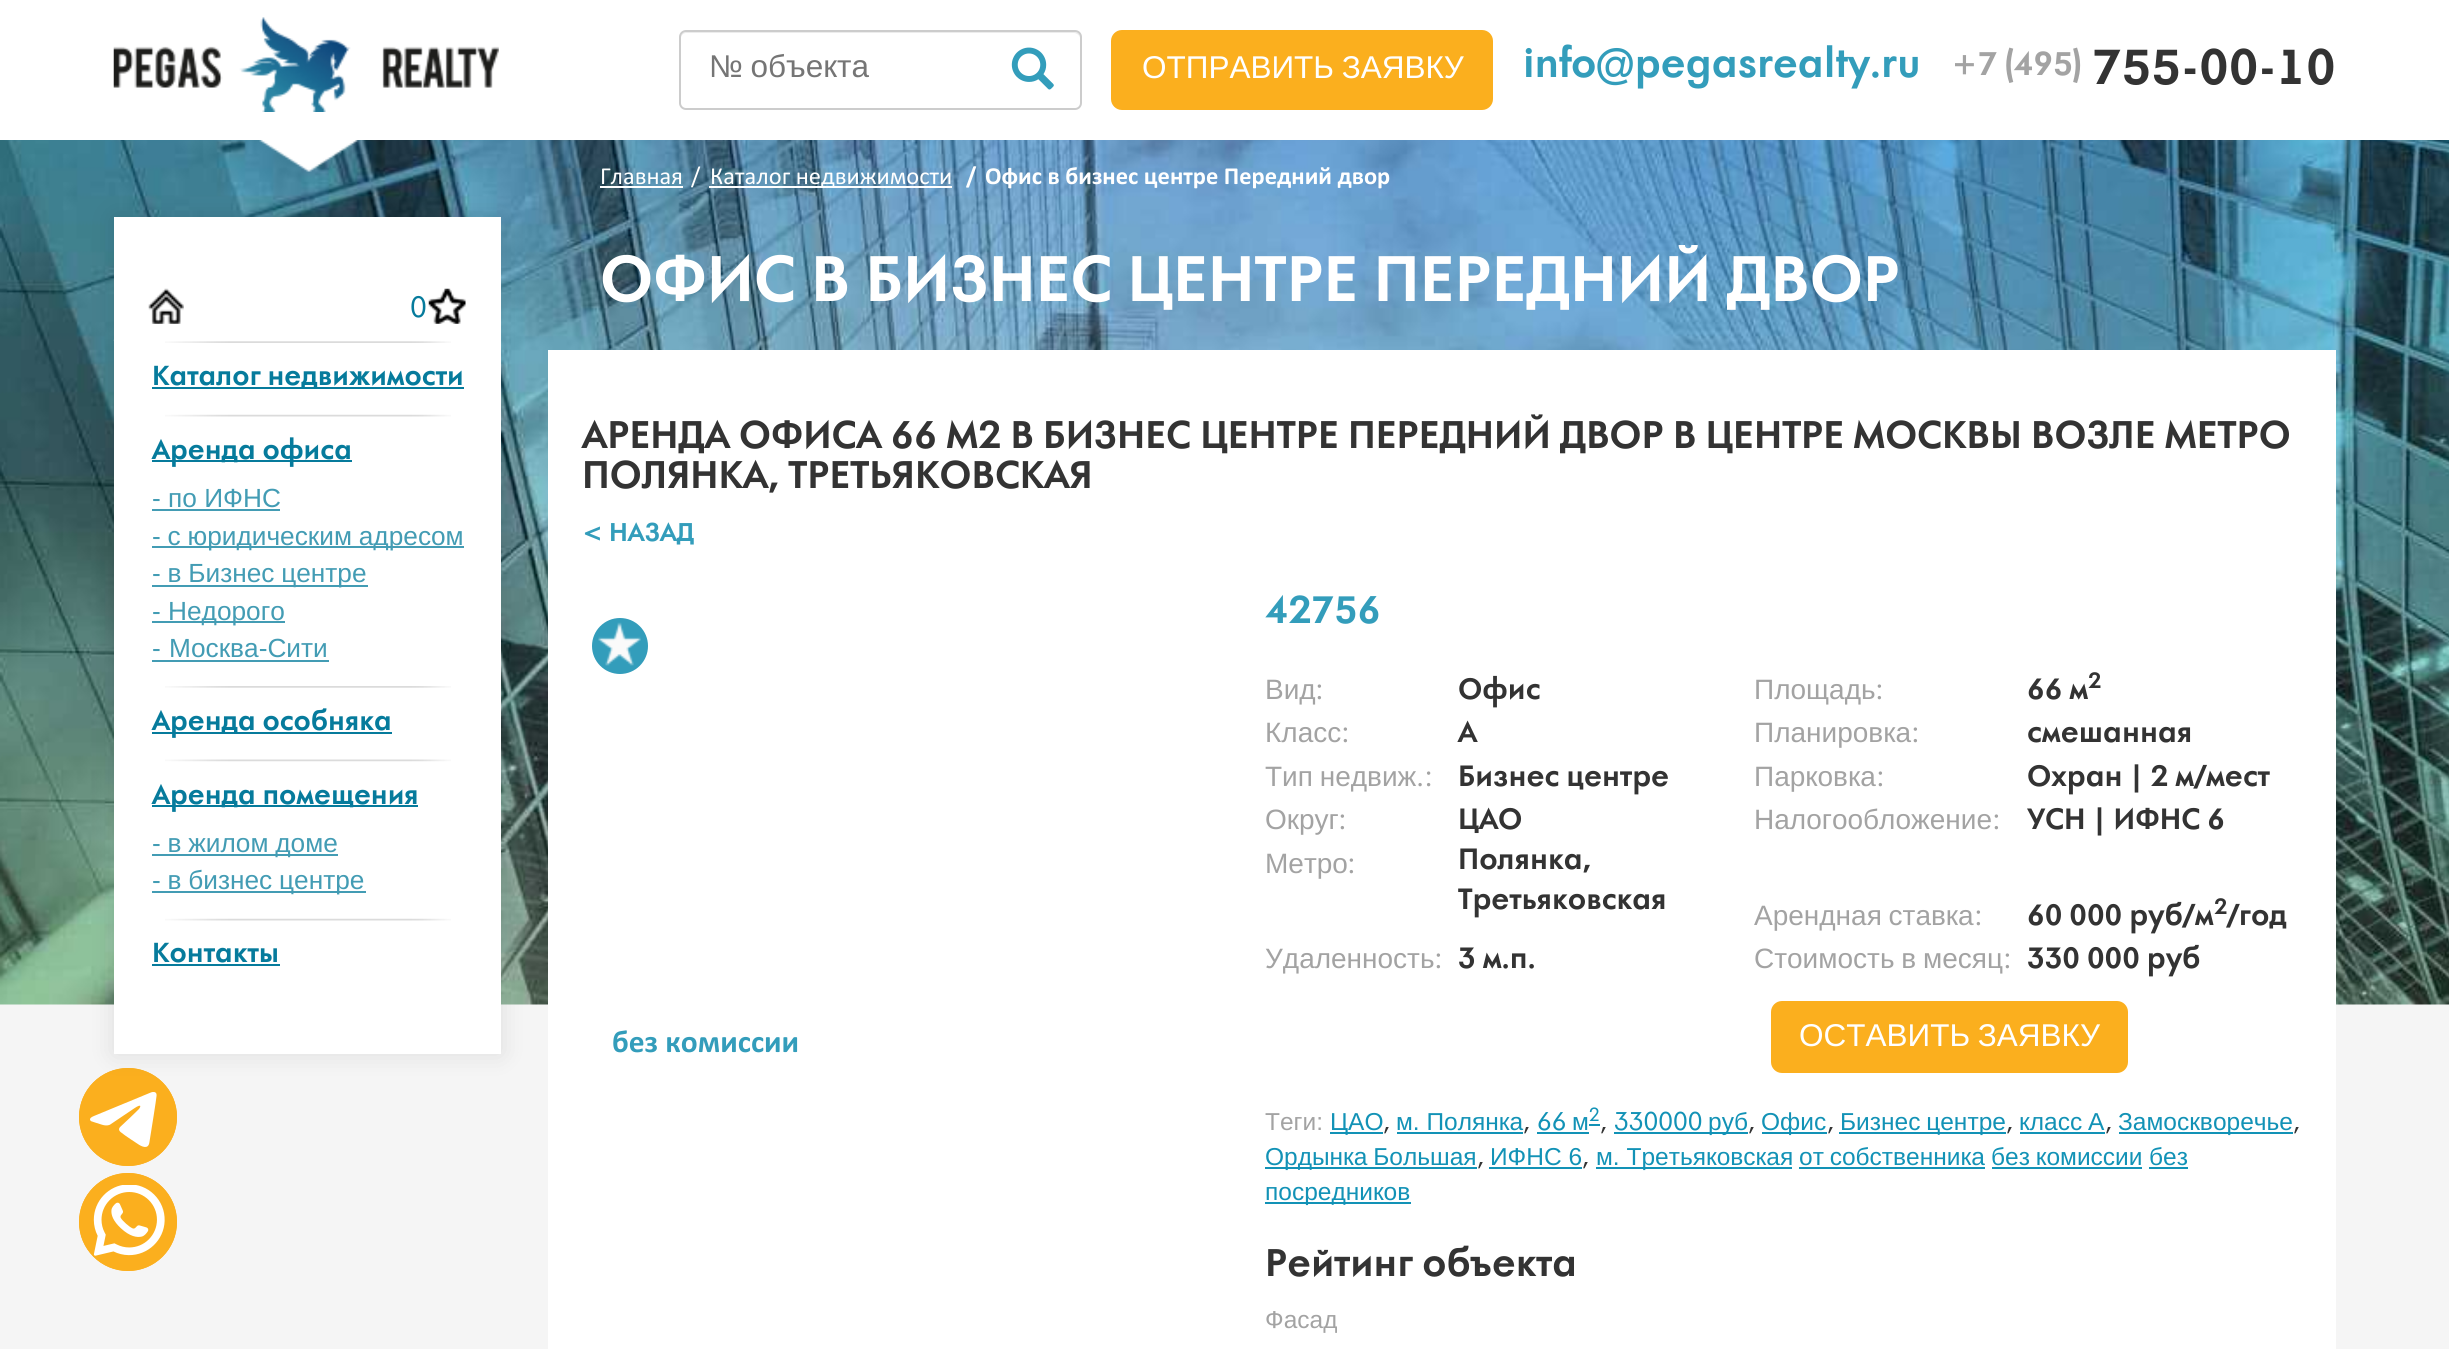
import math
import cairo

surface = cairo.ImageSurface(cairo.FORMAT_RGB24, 2449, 1349)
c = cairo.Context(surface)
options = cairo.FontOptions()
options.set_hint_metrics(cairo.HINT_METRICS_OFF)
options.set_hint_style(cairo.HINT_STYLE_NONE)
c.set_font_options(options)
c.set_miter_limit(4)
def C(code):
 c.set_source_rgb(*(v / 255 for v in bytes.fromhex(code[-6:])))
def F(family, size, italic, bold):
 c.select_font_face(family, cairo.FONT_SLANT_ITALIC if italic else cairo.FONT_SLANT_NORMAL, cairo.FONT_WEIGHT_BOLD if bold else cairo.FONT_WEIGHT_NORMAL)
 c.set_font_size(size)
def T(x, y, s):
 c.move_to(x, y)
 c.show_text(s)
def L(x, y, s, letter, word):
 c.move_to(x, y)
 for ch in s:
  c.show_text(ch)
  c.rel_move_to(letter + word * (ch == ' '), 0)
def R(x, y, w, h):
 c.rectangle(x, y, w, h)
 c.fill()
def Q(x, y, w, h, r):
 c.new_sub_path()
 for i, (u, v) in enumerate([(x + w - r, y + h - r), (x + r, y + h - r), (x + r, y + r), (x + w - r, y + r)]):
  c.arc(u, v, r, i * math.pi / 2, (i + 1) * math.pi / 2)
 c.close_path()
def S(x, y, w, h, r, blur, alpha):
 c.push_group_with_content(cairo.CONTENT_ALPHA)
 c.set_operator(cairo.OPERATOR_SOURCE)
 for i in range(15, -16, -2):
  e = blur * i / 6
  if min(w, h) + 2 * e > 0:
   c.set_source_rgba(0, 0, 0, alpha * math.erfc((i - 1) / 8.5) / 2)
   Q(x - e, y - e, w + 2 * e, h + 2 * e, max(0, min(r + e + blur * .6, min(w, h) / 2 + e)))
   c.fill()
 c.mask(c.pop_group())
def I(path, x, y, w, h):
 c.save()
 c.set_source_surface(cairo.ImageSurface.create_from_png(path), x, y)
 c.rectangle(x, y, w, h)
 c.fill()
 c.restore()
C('f5f5f5')
c.paint()
I('1.png',0,140,2449,865)
C('ffffff')
R(0,0,2449,140)
I('2.png',113,17,386,95)
C('ececec')
c.new_path()
c.move_to(686,33)
c.line_to(1074,33)
c.curve_to(1077,33,1080,36,1080,38)
c.line_to(1080,37)
c.curve_to(1080,34,1078,32,1075,32)
c.line_to(686,32)
c.curve_to(683,32,681,34,681,37)
c.line_to(681,38)
c.curve_to(681,36,683,33,686,33)
c.close_path()
c.fill()
Q(680,31,401,78,6)
C('cccccc')
c.stroke()
F('Liberation Sans',31.5,0,0)
C('757575')
L(709,77,'№ объекта',0,-1)
I('3.png',1011,47,43,43)
C('fbaf1e')
Q(1112,31,380,78,10)
c.fill_preserve()
c.stroke()
C('ffffff')
L(1142,78,'ОТПРАВИТЬ ЗАЯВКУ',0,-1)
F('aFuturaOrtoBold',38.5,1,1)
C('339dbb')
T(1523,77,'info@pegasrealty.ru')
F('aFuturaOrtoBold',31.5,1,1)
C('a3a3a3')
T(1951,75,'+7 (495)')
F('aFuturaOrtoBold',47.25,1,1)
C('333333')
T(2092,84,'755-00-10')
I('4.png',259,140,100,32)
c.arc(128,1117,48.5,0,2 * math.pi)
C('fbaf1e')
c.set_line_width(1)
c.stroke()
c.arc(128,1117,49,0,2 * math.pi)
c.fill()
I('5.png',90,1092,67,55)
C('000000')
S(114,217,387,837,0,12,.1)
C('ffffff')
R(114,217,387,837)
I('6.png',113,339,1,2)
I('7.png',148,288,36,36)
I('8.png',428,288,38,36)
F('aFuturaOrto',28,0,0)
C('067b9c')
T(410,317,'0')
I('9.png',165,341,286,2)
R(152,387,312,2)
F('aFuturaOrtoBold',26.25,1,1)
T(152,385,'Каталог недвижимости')
I('10.png',165,414,286,3)
R(152,460,200,2)
T(152,459,'Аренда офиса')
F('Liberation Sans',26.25,0,0)
C('439cb4')
T(152,507,'- по ИФНС')
R(152,509,128,2)
R(152,546,312,2)
L(152,545,'- с юридическим адресом',0,-.5)
R(152,585,216,2)
L(152,582,'- в Бизнес центре',0,-.5)
R(152,621,133,2)
T(152,620,'- Недорого')
L(152,657,'- Москва-Сити',0,1)
R(152,660,177,2)
I('11.png',165,686,286,2)
C('067b9c')
R(152,732,240,2)
F('aFuturaOrtoBold',26.25,1,1)
T(152,730,'Аренда особняка')
I('12.png',165,759,286,3)
R(152,805,266,2)
T(152,804,'Аренда помещения')
C('439cb4')
R(152,854,186,2)
F('Liberation Sans',26.25,0,0)
L(152,852,'- в жилом доме',0,-.5)
R(152,891,214,2)
L(152,889,'- в бизнес центре',0,-.5)
I('10.png',165,918,286,3)
F('aFuturaOrtoBold',26.25,1,1)
C('067b9c')
T(152,962,'Контакты')
R(152,964,128,2)
F('Calibri',24.5,0,0)
C('ffffff')
T(600,184,'Главная')
R(600,186,83,2)
T(691,184,'/')
R(709,186,243,2)
T(710,184,'Каталог недвижимости')
F('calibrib',24.5,0,1)
T(966,184,'/')
T(985,184,'Офис в бизнес центре Передний двор')
F('aFuturaOrtoBold',61.25,1,1)
T(600,301,'ОФИС В БИЗНЕС ЦЕНТРЕ ПЕРЕДНИЙ ДВОР')
R(548,350,1788,999)
F('aFuturaOrtoBold',36.75,1,1)
C('333333')
T(582,448,'АРЕНДА ОФИСА 66 М2 В БИЗНЕС ЦЕНТРЕ ПЕРЕДНИЙ ДВОР В ЦЕНТРЕ МОСКВЫ ВОЗЛЕ МЕТРО')
T(582,488,'ПОЛЯНКА, ТРЕТЬЯКОВСКАЯ')
F('aFuturaOrtoBold',24.5,1,1)
C('339dbb')
T(582,541,'< НАЗАД')
c.new_path()
c.arc(620,646,28,0,2 * math.pi)
c.fill()
I('13.png',598,622,43,44)
F('calibrib',31.5,0,1)
T(612,1052,'без комиссии')
F('aFuturaOrtoBold',36.75,1,1)
T(1265,623,'42756')
F('Liberation Sans',28,0,0)
C('a3a3a3')
T(1265,699,'Вид')
F('aFuturaOrto',28,0,0)
T(1315,699,':')
F('aFuturaOrtoBold',28,1,1)
C('333333')
T(1458,699,'Офис')
F('Liberation Sans',28,0,0)
C('a3a3a3')
T(1754,699,'Площадь')
F('aFuturaOrto',28,0,0)
T(1875,699,':')
F('aFuturaOrtoBold',28,1,1)
C('333333')
T(2027,699,'66 м')
F('aFuturaOrtoBold',21,1,1)
T(2088,688,'2')
F('Liberation Sans',28,0,0)
C('a3a3a3')
T(1265,742,'Класс')
F('aFuturaOrto',28,0,0)
T(1341,742,':')
F('aFuturaOrtoBold',28,1,1)
C('333333')
T(1458,742,'A')
F('Liberation Sans',28,0,0)
C('a3a3a3')
T(1754,742,'Планировка')
F('aFuturaOrto',28,0,0)
T(1911,742,':')
F('aFuturaOrtoBold',28,1,1)
C('333333')
T(2027,742,'смешанная')
F('Liberation Sans',28,0,0)
C('a3a3a3')
L(1265,786,'Тип недвиж',0,-1)
F('aFuturaOrto',28,0,0)
T(1416,786,'.:')
F('aFuturaOrtoBold',28,1,1)
C('333333')
T(1458,786,'Бизнес центре')
F('Liberation Sans',28,0,0)
C('a3a3a3')
T(1754,786,'Парковка')
F('aFuturaOrto',28,0,0)
T(1876,786,':')
F('aFuturaOrtoBold',28,1,1)
C('333333')
T(2027,786,'Охран | 2 м/мест')
F('Liberation Sans',28,0,0)
C('a3a3a3')
T(1265,829,'Округ')
F('aFuturaOrto',28,0,0)
T(1338,829,':')
F('aFuturaOrtoBold',28,1,1)
C('333333')
T(1458,829,'ЦАО')
F('Liberation Sans',28,0,0)
C('a3a3a3')
T(1754,829,'Налогообложение')
F('aFuturaOrto',28,0,0)
T(1992,829,':')
F('aFuturaOrtoBold',28,1,1)
C('333333')
T(2027,829,'УСН | ИФНС 6')
F('Liberation Sans',28,0,0)
C('a3a3a3')
T(1265,873,'Метро')
F('aFuturaOrto',28,0,0)
T(1347,873,':')
F('aFuturaOrtoBold',28,1,1)
C('333333')
T(1458,869,'Полянка,')
T(1458,909,'Третьяковская')
F('Liberation Sans',28,0,0)
C('a3a3a3')
L(1754,925,'Арендная ставка',0,-1)
F('aFuturaOrto',28,0,0)
T(1974,925,':')
F('aFuturaOrtoBold',28,1,1)
C('333333')
T(2027,925,'60 000 руб/м')
T(2227,925,'/год')
F('aFuturaOrtoBold',21,1,1)
T(2214,914,'2')
F('Liberation Sans',28,0,0)
C('a3a3a3')
T(1265,968,'Удаленность')
F('aFuturaOrto',28,0,0)
T(1434,968,':')
F('aFuturaOrtoBold',28,1,1)
C('333333')
T(1458,968,'3 м.п.')
F('Liberation Sans',28,0,0)
C('a3a3a3')
L(1754,968,'Стоимость в месяц',0,-1)
F('aFuturaOrto',28,0,0)
T(2003,968,':')
F('aFuturaOrtoBold',28,1,1)
C('333333')
T(2027,968,'330 000 руб')
C('fbaf1e')
Q(1771,1001,357,72,11)
c.fill()
F('Liberation Sans',31.5,0,0)
C('ffffff')
L(1799,1046,'ОСТАВИТЬ ЗАЯВКУ',0,-1)
F('Liberation Sans',24.5,0,0)
C('a3a3a3')
T(1265,1130,'Теги:')
C('1292b6')
R(1330,1132,53,2)
T(1330,1130,'ЦАО')
F('aFuturaOrto',24.5,0,0)
C('333333')
T(1383,1130,',')
F('Liberation Sans',24.5,0,0)
C('1292b6')
T(1396,1130,'м. Полянка')
R(1397,1132,126,2)
F('aFuturaOrto',24.5,0,0)
C('333333')
T(1523,1130,',')
C('1292b6')
T(1537,1130,'66')
F('Liberation Sans',24.5,0,0)
T(1572,1130,'м')
R(1537,1132,52,2)
R(1589,1124,11,2)
F('aFuturaOrto',18,0,0)
T(1589,1121,'2')
F('aFuturaOrto',24.5,0,0)
C('333333')
T(1600,1130,',')
C('1292b6')
T(1614,1130,'330000')
R(1614,1132,134,2)
F('Liberation Sans',24.5,0,0)
T(1708,1130,'руб')
F('aFuturaOrto',24.5,0,0)
C('333333')
T(1748,1130,',')
C('1292b6')
R(1762,1132,65,2)
F('Liberation Sans',24.5,0,0)
T(1761,1130,'Офис')
F('aFuturaOrto',24.5,0,0)
C('333333')
T(1827,1130,',')
C('1292b6')
R(1839,1132,167,2)
F('Liberation Sans',24.5,0,0)
L(1840,1130,'Бизнес центре',0,-1)
F('aFuturaOrto',24.5,0,0)
C('333333')
T(2006,1130,',')
F('Liberation Sans',24.5,0,0)
C('1292b6')
L(2019,1130,'класс A',0,-1)
R(2020,1132,85,2)
F('aFuturaOrto',24.5,0,0)
C('333333')
T(2105,1130,',')
C('1292b6')
R(2119,1132,174,2)
F('Liberation Sans',24.5,0,0)
T(2118,1130,'Замоскворечье')
F('aFuturaOrto',24.5,0,0)
C('333333')
T(2293,1130,',')
C('1292b6')
R(1265,1167,212,2)
F('Liberation Sans',24.5,0,0)
L(1265,1165,'Ордынка Большая',0,-1)
F('aFuturaOrto',24.5,0,0)
C('333333')
T(1477,1165,',')
F('Liberation Sans',24.5,0,0)
C('1292b6')
T(1490,1165,'ИФНС 6')
R(1489,1167,93,2)
F('aFuturaOrto',24.5,0,0)
C('333333')
T(1582,1165,',')
C('1292b6')
R(1596,1167,196,2)
F('Liberation Sans',24.5,0,0)
T(1596,1165,'м. Третьяковская')
L(1799,1165,'от собственника',0,-1)
R(1799,1167,186,2)
L(1991,1165,'без комиссии',0,-1)
R(1992,1167,150,2)
T(2149,1165,'без')
R(2149,1167,39,2)
R(1265,1202,146,2)
T(1265,1200,'посредников')
F('aFuturaOrtoBold',36.75,1,1)
C('333333')
T(1265,1276,'Рейтинг объекта')
F('Liberation Sans',24.5,0,0)
C('a3a3a3')
T(1265,1328,'Фасад')
c.new_path()
c.arc(128,1222,48.5,0,2 * math.pi)
C('fbaf1e')
c.stroke()
c.arc(128,1222,49,0,2 * math.pi)
c.fill()
I('14.png',93,1185,72,71)
surface.write_to_png('o.png')
